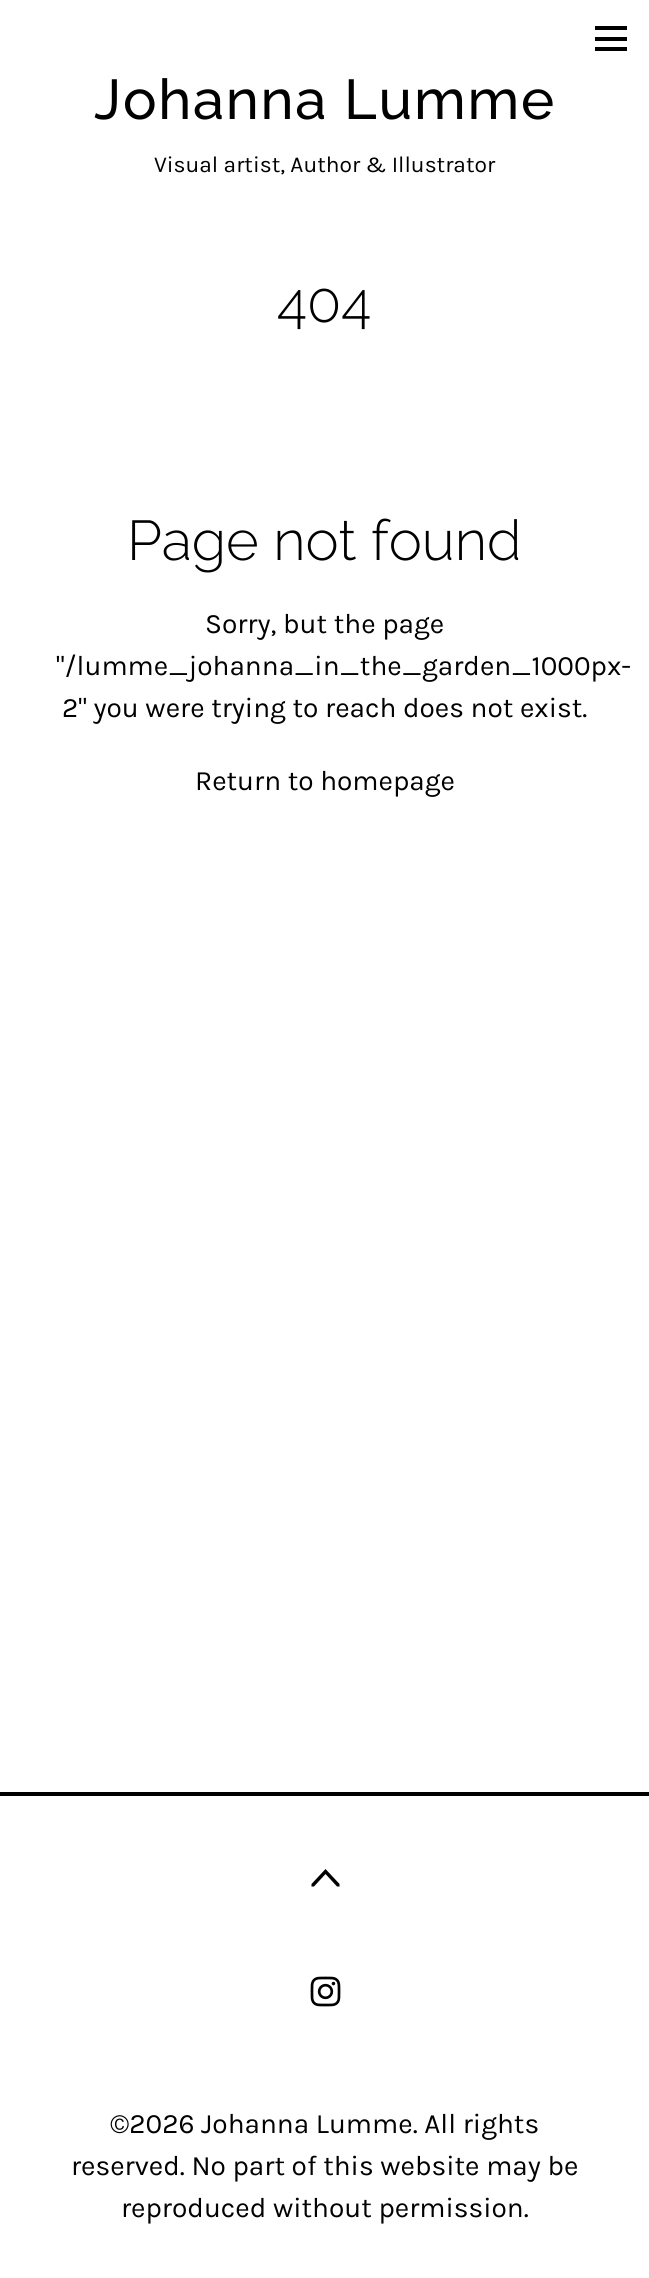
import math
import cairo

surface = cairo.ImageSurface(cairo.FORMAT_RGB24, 649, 2278)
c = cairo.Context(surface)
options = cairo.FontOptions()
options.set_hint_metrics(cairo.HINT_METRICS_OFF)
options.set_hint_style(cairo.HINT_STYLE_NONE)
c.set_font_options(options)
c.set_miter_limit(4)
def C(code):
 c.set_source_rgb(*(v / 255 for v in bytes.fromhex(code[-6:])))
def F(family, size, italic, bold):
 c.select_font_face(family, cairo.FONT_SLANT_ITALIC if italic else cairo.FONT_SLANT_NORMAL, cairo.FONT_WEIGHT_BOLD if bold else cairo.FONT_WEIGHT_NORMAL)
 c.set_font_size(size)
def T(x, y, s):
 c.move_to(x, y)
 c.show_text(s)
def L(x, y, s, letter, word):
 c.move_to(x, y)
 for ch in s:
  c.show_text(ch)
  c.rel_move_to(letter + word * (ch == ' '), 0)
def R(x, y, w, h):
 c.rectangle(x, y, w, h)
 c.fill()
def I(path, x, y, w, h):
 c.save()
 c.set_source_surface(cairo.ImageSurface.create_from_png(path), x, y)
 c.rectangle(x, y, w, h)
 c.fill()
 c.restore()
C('ffffff')
c.paint()
C('000000')
R(595,37,32,4)
R(595,26,32,4)
R(595,47,32,4)
F('Raleway Medium',56,0,0)
L(94,119,'Johanna Lumme',1.75,0)
F('Karla',22.75,0,0)
T(154,172,'Visual artist, Author & Illustrator')
F('Raleway Light',56,0,0)
T(277,322,'404')
T(127,560,'Page not found')
F('Karla',28,0,0)
T(205,633,'Sorry, but the page')
T(56,675,'"/lumme_johanna_in_the_garden_1000px-')
T(62,717,'2" you were trying to reach does not exist.')
T(195,790,'Return to homepage')
R(0,1792,649,4)
c.new_path()
c.move_to(337,1886.5)
c.line_to(325.5,1874)
c.line_to(314,1886.5)
c.line_to(311.5,1886.5)
c.line_to(311.5,1884)
c.line_to(325.5,1869)
c.line_to(339.5,1884)
c.line_to(339.5,1886.5)
c.close_path()
c.fill()
I('1.png',310,1976,31,31)
T(110,2133,'©2026 Johanna Lumme. All rights')
T(71,2175,'reserved. No part of this website may be')
T(121,2217,'reproduced without permission.')
surface.write_to_png('o.png')
